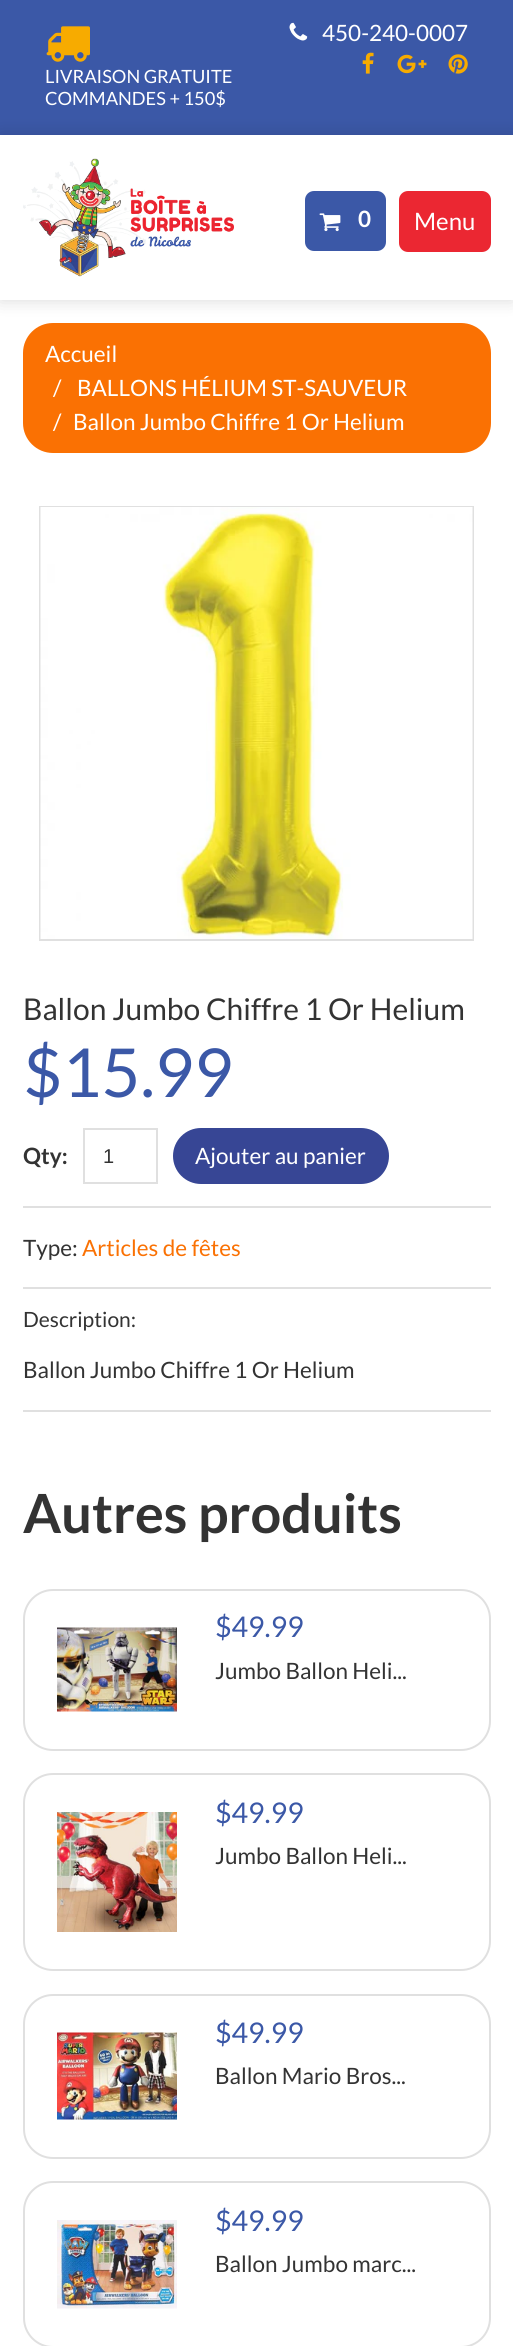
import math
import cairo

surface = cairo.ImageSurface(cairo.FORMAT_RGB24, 513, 2346)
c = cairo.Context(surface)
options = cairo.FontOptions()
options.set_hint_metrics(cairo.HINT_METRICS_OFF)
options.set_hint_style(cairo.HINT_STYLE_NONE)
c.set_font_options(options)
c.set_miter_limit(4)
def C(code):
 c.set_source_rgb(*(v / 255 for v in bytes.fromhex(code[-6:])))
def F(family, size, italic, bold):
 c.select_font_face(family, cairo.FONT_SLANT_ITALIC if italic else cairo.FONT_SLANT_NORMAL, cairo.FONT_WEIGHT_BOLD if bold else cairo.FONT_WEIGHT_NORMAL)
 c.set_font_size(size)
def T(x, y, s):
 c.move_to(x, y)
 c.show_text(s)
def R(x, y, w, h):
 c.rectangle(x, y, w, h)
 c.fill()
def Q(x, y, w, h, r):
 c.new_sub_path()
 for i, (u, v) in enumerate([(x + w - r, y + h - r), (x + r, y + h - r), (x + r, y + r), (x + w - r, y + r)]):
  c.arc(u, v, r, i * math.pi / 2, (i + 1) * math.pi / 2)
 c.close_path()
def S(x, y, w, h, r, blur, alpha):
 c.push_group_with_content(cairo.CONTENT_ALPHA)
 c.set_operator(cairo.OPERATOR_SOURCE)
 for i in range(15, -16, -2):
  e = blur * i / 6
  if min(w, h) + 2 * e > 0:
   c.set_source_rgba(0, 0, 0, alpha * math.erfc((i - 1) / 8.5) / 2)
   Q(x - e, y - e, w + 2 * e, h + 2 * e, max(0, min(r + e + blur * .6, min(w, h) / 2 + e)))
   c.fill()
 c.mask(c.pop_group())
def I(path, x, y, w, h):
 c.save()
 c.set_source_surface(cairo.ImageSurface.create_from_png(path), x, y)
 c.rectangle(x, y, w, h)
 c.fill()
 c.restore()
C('ffffff')
c.paint()
C('3b58a7')
R(0,0,513,135)
I('1.png',289,22,19,19)
F('Lato',22.5,0,0)
C('ffffff')
T(322,41,'450-240-0007')
I('2.png',362,52,12,22)
I('3.png',397,54,30,20)
I('4.png',448,54,20,20)
I('5.png',46,26,44,36)
F('Lato',18.25,0,0)
T(45,83,'LIVRAISON GRATUITE')
T(45,105,'COMMANDES + 150$')
C('fa7103')
Q(23,323,468,130,30)
c.fill()
c.save()
c.set_fill_rule(cairo.FILL_RULE_EVEN_ODD)
c.new_path()
c.move_to(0,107)
c.line_to(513,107)
c.line_to(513,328)
c.line_to(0,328)
c.close_path()
c.move_to(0,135)
c.line_to(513,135)
c.line_to(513,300)
c.line_to(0,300)
c.close_path()
c.clip()
C('000000')
S(0,135,513,165,0,9,.15)
c.restore()
I('6.png',23,158,211,119)
C('3b58a7')
Q(305,191,81,60,9)
c.fill()
I('7.png',319,213,22,19)
F('Lato',22.5,0,1)
C('ffffff')
T(358,227,'0')
C('eb2732')
Q(399,191,92,61,9)
c.fill()
F('Lato',24,0,0)
C('ffffff')
T(414,230,'Menu')
F('Lato',22.5,0,0)
T(45,362,'Accueil')
T(53,396,'/')
T(77,396,'BALLONS HÉLIUM ST-SAUVEUR')
T(53,430,'/')
T(73,430,'Ballon Jumbo Chiffre 1 Or Helium')
c.rectangle(40,507,433,433)
C('e0e0e0')
c.stroke()
I('8.png',40,507,433,432)
F('Lato',30,0,0)
C('333333')
T(23,1020,'Ballon Jumbo Chiffre 1 Or Helium')
F('Lato',67.5,0,0)
C('3b58a7')
T(23,1097,'$15.99')
F('Lato',22.5,0,1)
C('333333')
T(23,1164,'Qty:')
c.rectangle(84,1129,73,54)
C('e0e0e0')
c.stroke()
F('Liberation Sans',20,0,0)
C('333333')
T(103,1163,'1')
C('374695')
Q(173,1128,216,56,28)
c.fill()
F('Lato',22.5,0,0)
C('ffffff')
T(195,1164,'Ajouter au panier')
C('e0e0e0')
R(23,1206,468,2)
R(23,1287,468,2)
C('333333')
T(23,1256,'Type:')
C('fa7103')
T(82,1256,'Articles de fêtes')
F('Lato',21,0,0)
C('333333')
T(23,1327,'Description:')
F('Lato',22.5,0,0)
T(23,1378,'Ballon Jumbo Chiffre 1 Or Helium')
C('e0e0e0')
R(23,1410,468,2)
F('Lato',54,0,1)
C('333333')
T(23,1533,'Autres produits')
Q(24,1590,466,160,29)
C('e0e0e0')
c.stroke()
I('9.png',57,1627,120,85)
F('Lato',28.5,0,0)
C('3b58a7')
T(215,1637,'$49.99')
F('Lato',22.5,0,0)
C('333333')
T(215,1679,'Jumbo Ballon Heli...')
Q(24,1774,466,196,29)
C('e0e0e0')
c.stroke()
I('10.png',57,1812,120,120)
F('Lato',28.5,0,0)
C('3b58a7')
T(215,1823,'$49.99')
F('Lato',22.5,0,0)
C('333333')
T(215,1864,'Jumbo Ballon Heli...')
Q(24,1995,466,163,29)
C('e0e0e0')
c.stroke()
I('11.png',57,2032,120,88)
F('Lato',28.5,0,0)
C('3b58a7')
T(215,2043,'$49.99')
F('Lato',22.5,0,0)
C('333333')
T(215,2084,'Ballon Mario Bros...')
Q(24,2182,466,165,29)
C('e0e0e0')
c.stroke()
I('12.png',57,2220,120,89)
F('Lato',28.5,0,0)
C('3b58a7')
T(215,2231,'$49.99')
F('Lato',22.5,0,0)
C('333333')
T(215,2272,'Ballon Jumbo marc...')
surface.write_to_png('o.png')
